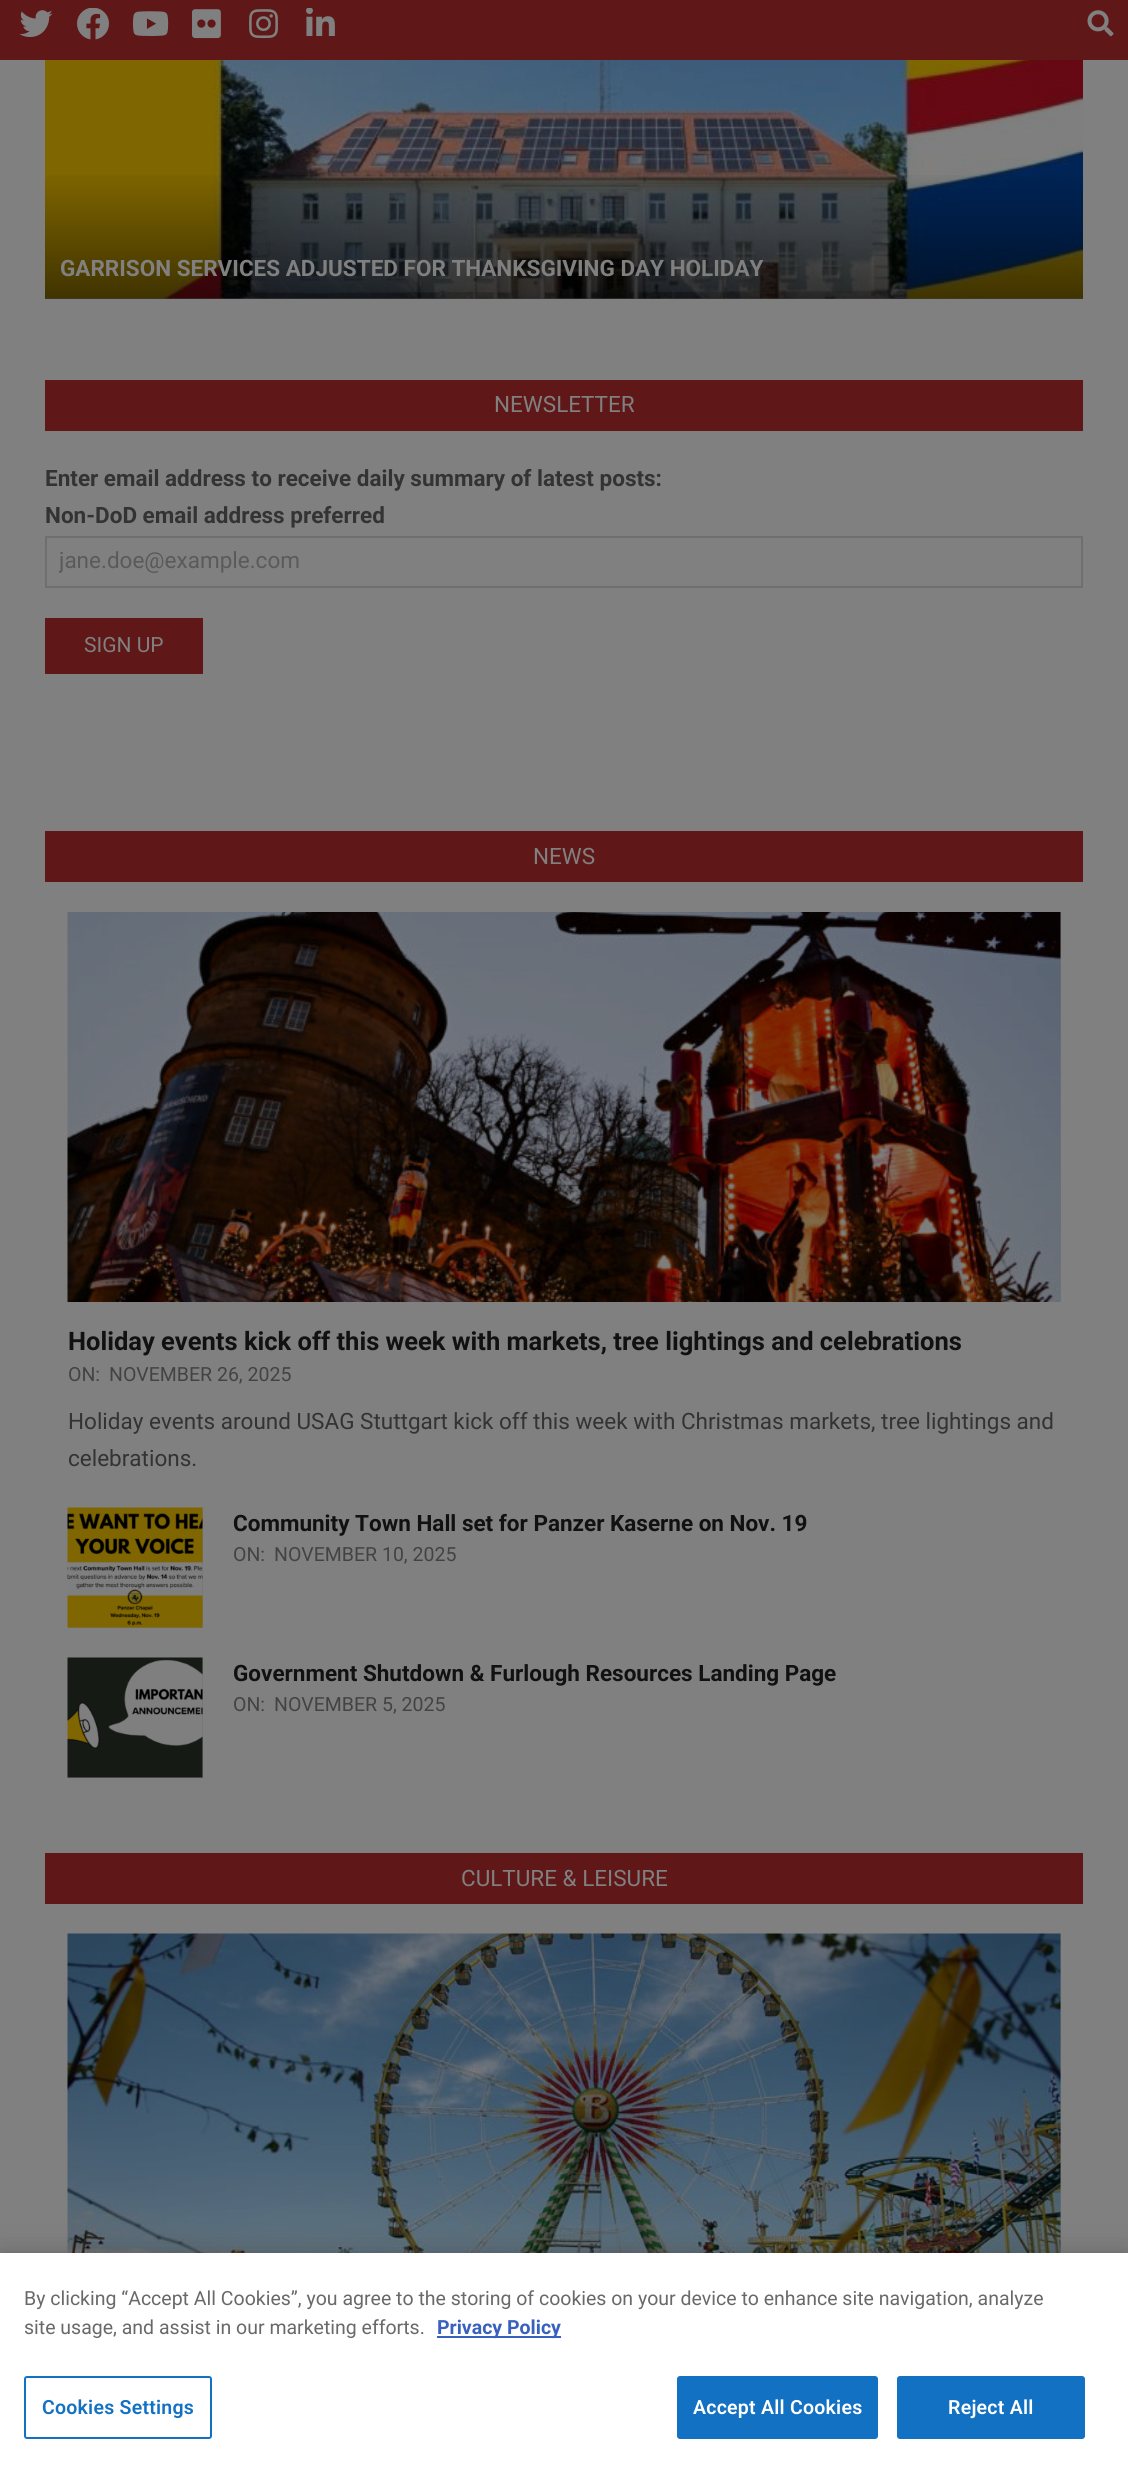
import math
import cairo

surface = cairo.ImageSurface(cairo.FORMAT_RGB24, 1128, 2469)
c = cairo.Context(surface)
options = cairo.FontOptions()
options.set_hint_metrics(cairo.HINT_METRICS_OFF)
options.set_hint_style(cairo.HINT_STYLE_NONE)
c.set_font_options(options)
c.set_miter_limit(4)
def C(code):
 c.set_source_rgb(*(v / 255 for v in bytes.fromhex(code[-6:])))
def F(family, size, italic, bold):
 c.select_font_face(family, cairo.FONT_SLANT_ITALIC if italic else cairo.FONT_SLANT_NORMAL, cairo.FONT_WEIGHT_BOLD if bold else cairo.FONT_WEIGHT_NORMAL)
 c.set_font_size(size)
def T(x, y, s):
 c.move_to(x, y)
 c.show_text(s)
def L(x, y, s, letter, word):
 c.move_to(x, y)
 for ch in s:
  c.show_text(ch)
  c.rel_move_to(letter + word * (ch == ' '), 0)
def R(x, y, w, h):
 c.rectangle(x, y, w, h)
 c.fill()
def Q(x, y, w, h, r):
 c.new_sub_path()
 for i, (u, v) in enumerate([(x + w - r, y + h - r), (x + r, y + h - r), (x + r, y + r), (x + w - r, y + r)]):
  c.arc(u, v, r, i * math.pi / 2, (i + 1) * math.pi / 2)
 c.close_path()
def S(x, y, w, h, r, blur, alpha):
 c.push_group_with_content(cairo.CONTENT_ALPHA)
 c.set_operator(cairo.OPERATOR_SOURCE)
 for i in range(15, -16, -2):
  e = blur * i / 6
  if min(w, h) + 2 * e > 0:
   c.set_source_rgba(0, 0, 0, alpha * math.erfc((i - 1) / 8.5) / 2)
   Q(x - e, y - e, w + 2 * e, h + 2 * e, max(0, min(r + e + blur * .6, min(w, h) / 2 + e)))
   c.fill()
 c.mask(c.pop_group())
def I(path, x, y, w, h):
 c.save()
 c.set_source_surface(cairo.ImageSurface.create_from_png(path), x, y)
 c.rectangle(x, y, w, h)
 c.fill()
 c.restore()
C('808080')
c.paint()
C('5f1717')
R(0,0,1128,60)
I('1.png',19,10,34,27)
I('2.png',77,8,32,32)
I('3.png',132,11,37,25)
I('4.png',192,9,29,30)
I('5.png',249,9,29,30)
I('6.png',306,8,29,28)
I('7.png',1087,10,27,27)
C('7c7c7c')
R(45,298,1038,1)
I('8.png',45,60,1038,239)
gradient = cairo.LinearGradient(564,-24,564,299)
gradient.add_color_stop_rgba(.6,0,0,0,0)
gradient.add_color_stop_rgba(1,0,0,0,.5)
c.set_source(gradient)
R(45,175,1038,124)
F('Roboto',22.5,0,1)
C('808080')
T(60,276,'GARRISON SERVICES ADJUSTED FOR THANKSGIVING DAY HOLIDAY')
C('5f1717')
R(45,380,1038,51)
F('Roboto',22.5,0,0)
C('808080')
T(494,412,'NEWSLETTER')
F('Roboto',22.5,0,1)
C('333333')
T(45,486,'Enter email address to receive daily summary of latest posts:')
T(45,523,'Non-DoD email address preferred')
c.rectangle(46,537,1036,50)
C('6f6f6f')
c.stroke()
c.save()
c.rectangle(59,548,1011,27)
c.clip()
F('Roboto',22.5,0,0)
C('5a5a5a')
T(59,568,'jane.doe@example.com')
c.restore()
C('5f1717')
R(45,618,158,56)
F('Roboto',21,0,0)
C('808080')
T(84,652,'SIGN UP')
C('5f1717')
R(45,831,1038,51)
F('Roboto',22.5,0,0)
C('808080')
T(533,864,'NEWS')
C('737373')
R(1060,912,1,390)
I('9.png',67,912,994,390)
F('Roboto',25.5,0,1)
C('111111')
T(68,1350,'Holiday events kick off this week with markets, tree lightings and celebrations')
F('Roboto',19.5,0,0)
C('434343')
T(68,1381,'ON:')
T(109,1381,'NOVEMBER 26, 2025')
F('Roboto',22.5,0,0)
C('333333')
T(68,1429,'Holiday events around USAG Stuttgart kick off this week with Christmas markets, tree lightings and')
T(68,1466,'celebrations.')
C('737373')
R(68,1508,135,120)
I('10.png',67,1507,136,121)
F('Roboto',22.5,0,1)
C('111111')
T(233,1531,'Community Town Hall set for Panzer Kaserne on Nov. 19')
F('Roboto',19.5,0,0)
C('434343')
T(233,1561,'ON:')
T(274,1561,'NOVEMBER 10, 2025')
C('737373')
R(68,1658,135,120)
I('11.png',67,1657,136,121)
F('Roboto',22.5,0,1)
C('111111')
T(233,1681,'Government Shutdown & Furlough Resources Landing Page')
F('Roboto',19.5,0,0)
C('434343')
T(233,1711,'ON:')
T(274,1711,'NOVEMBER 5, 2025')
C('5f1717')
R(45,1853,1038,51)
F('Roboto',22.5,0,0)
C('808080')
T(461,1886,'CULTURE & LEISURE')
C('737373')
R(1060,1934,1,319)
I('12.png',67,1933,994,320)
C('000000')
S(0,2253,1128,216,0,13.5,.2)
C('ffffff')
R(0,2253,1128,216)
F('Roboto',19.5,0,0)
C('696969')
T(24,2305,'By clicking “Accept All Cookies”, you agree to the storing of cookies on your device to enhance site navigation, analyze')
T(24,2334,'site usage, and assist in our marketing efforts.')
C('3860be')
R(437,2336,124,2)
F('Roboto',19.5,0,1)
T(437,2334,'Privacy Policy')
Q(25,2377,186,61,2)
C('1371c3')
c.stroke()
F('Roboto SemiBold',19.5,0,0)
L(42,2414,'Cookies Settings',.25,0)
Q(678,2377,199,61,2)
c.fill_preserve()
c.stroke()
C('ffffff')
L(693,2414,'Accept All Cookies',.25,0)
C('1371c3')
Q(898,2377,186,61,2)
c.fill_preserve()
c.stroke()
C('ffffff')
L(948,2414,'Reject All',.25,0)
surface.write_to_png('o.png')
